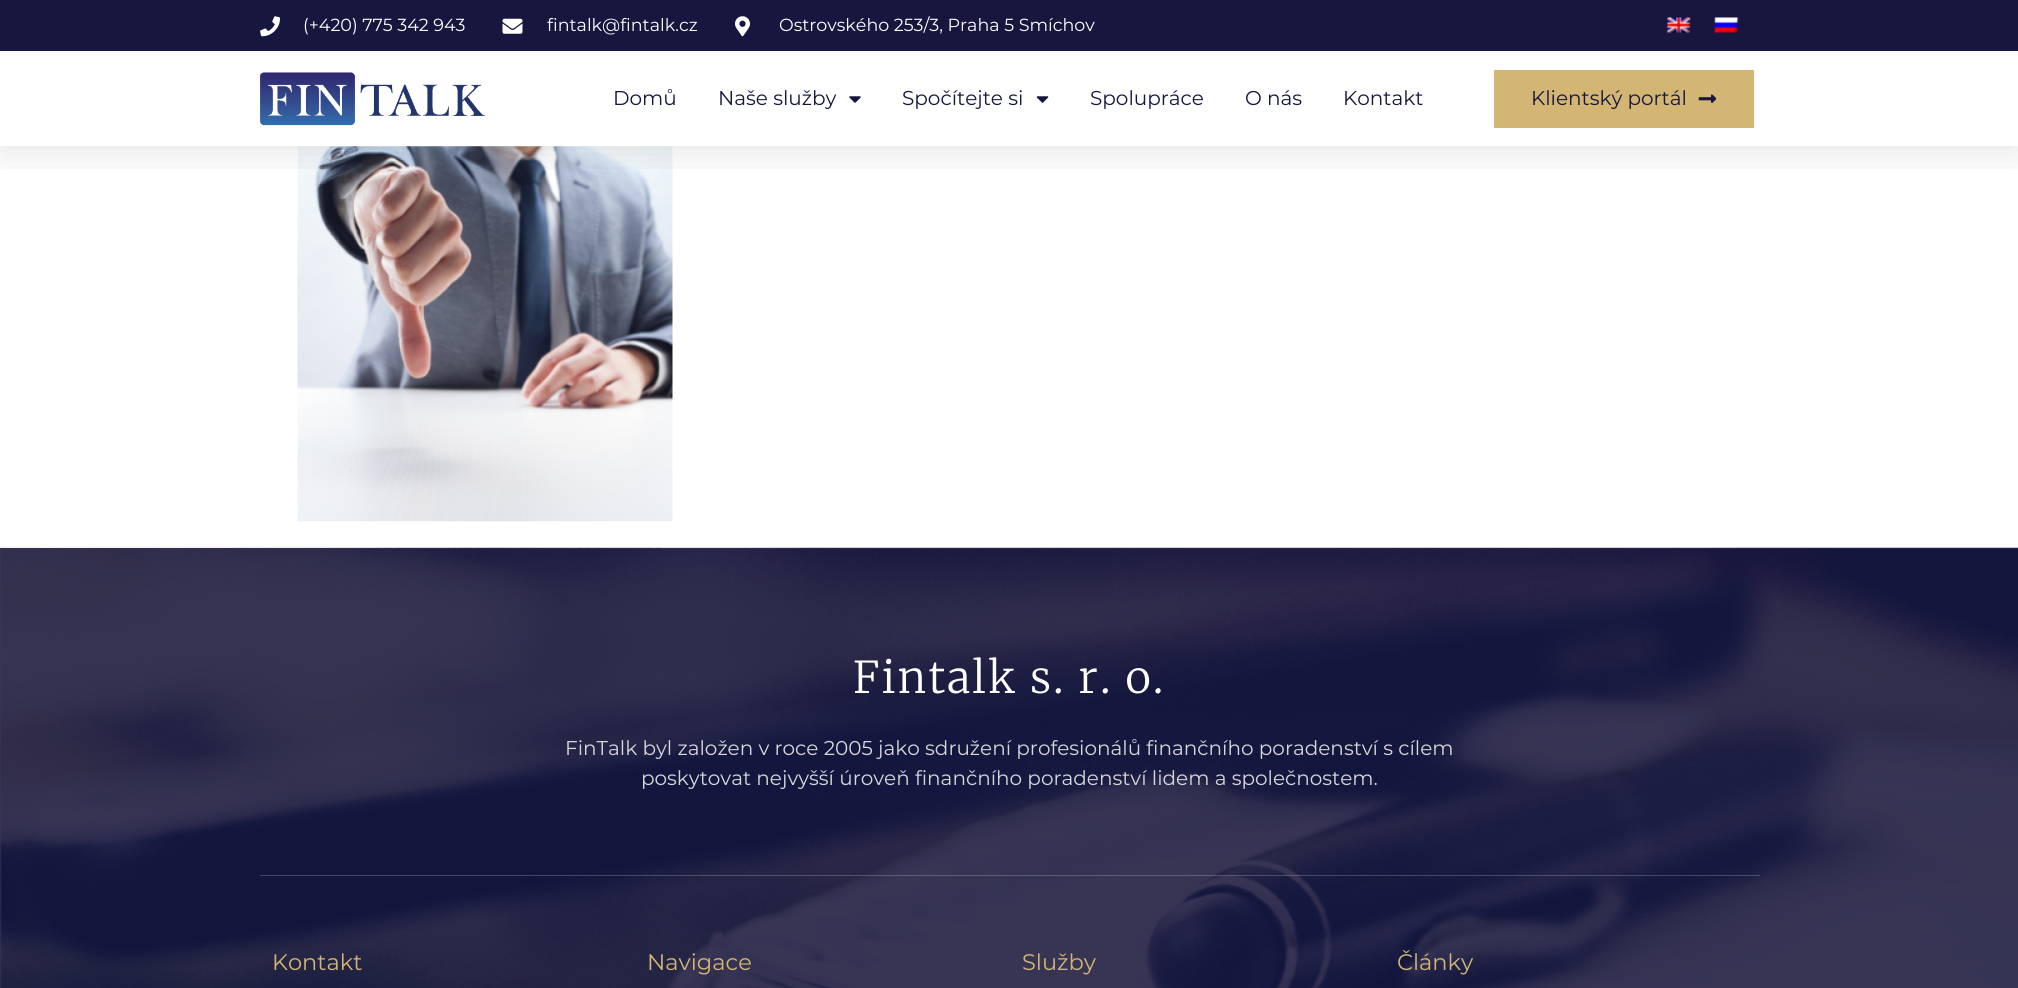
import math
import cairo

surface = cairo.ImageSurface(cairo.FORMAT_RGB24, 2018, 988)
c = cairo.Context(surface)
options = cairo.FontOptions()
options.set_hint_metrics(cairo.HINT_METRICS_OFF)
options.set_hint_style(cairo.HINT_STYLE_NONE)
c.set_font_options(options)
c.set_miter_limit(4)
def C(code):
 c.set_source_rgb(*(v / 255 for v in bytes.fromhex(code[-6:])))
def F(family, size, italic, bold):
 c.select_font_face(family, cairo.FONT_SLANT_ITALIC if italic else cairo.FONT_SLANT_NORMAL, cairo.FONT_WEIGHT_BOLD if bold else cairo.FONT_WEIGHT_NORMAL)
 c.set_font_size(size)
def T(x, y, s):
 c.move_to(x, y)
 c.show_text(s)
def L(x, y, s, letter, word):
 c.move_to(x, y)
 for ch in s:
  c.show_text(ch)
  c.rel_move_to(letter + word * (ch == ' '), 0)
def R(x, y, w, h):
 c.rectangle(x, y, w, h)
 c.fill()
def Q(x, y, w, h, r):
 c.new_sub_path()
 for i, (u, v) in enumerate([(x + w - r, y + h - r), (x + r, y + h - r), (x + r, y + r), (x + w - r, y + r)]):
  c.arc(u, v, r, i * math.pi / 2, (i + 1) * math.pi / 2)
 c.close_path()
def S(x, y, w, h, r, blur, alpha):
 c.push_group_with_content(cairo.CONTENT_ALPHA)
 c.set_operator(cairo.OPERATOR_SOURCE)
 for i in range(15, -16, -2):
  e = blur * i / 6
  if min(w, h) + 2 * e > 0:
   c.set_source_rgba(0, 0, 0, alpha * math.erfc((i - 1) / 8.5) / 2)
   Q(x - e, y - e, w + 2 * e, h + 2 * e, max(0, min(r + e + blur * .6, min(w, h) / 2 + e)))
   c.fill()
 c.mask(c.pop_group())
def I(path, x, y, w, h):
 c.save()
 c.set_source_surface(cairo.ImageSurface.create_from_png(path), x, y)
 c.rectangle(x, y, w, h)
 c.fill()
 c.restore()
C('ffffff')
c.paint()
C('39395c')
R(0,548,2018,440)
I('10.png',297,146,376,376)
c.save()
c.rectangle(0,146,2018,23)
c.clip()
C('000000')
S(0,6,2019,147,0,19,.1)
c.restore()
C('16163f')
R(0,0,2018,51)
I('1.png',260,16,20,21)
F('Montserrat',17.5,0,0)
C('ffffff')
T(303,31,'(+420) 775 342 943')
I('2.png',502,18,21,16)
T(547,31,'fintalk@fintalk.cz')
I('3.png',735,16,15,21)
T(779,31,'Ostrovského 253/3, Praha 5 Smíchov')
I('4.png',1667,17,24,16)
I('5.png',1714,17,25,16)
I('6.png',260,72,225,54)
F('Montserrat',20,0,0)
C('16163f')
T(613,105,'Domů')
T(718,105,'Naše služby')
I('7.png',849,96,12,7)
T(902,105,'Spočítejte si')
I('8.png',1036,96,13,7)
T(1090,105,'Spolupráce')
T(1245,105,'O nás')
T(1343,105,'Kontakt')
C('d3b574')
R(1494,70,260,58)
C('16163f')
T(1531,105,'Klientský portál')
I('9.png',1698,94,19,9)
I('11.png',0,547,2018,441)
c.set_source_rgba(1,1,1,0.2)
R(260,875,1500,1)
F('Merriweather Light',43.75,0,0)
C('ffffff')
L(853,693,'Fintalk s. r. o.',2.25,0)
F('Montserrat',20,0,0)
C('d7d7d9')
T(565,755,'FinTalk byl založen v roce 2005 jako sdružení profesionálů finančního poradenství s cílem')
T(641,785,'poskytovat nejvyšší úroveň finančního poradenství lidem a společnostem.')
F('Montserrat',22.5,0,0)
C('d3b574')
T(272,970,'Kontakt')
T(647,970,'Navigace')
T(1022,970,'Služby')
T(1397,970,'Články')
surface.write_to_png('o.png')
